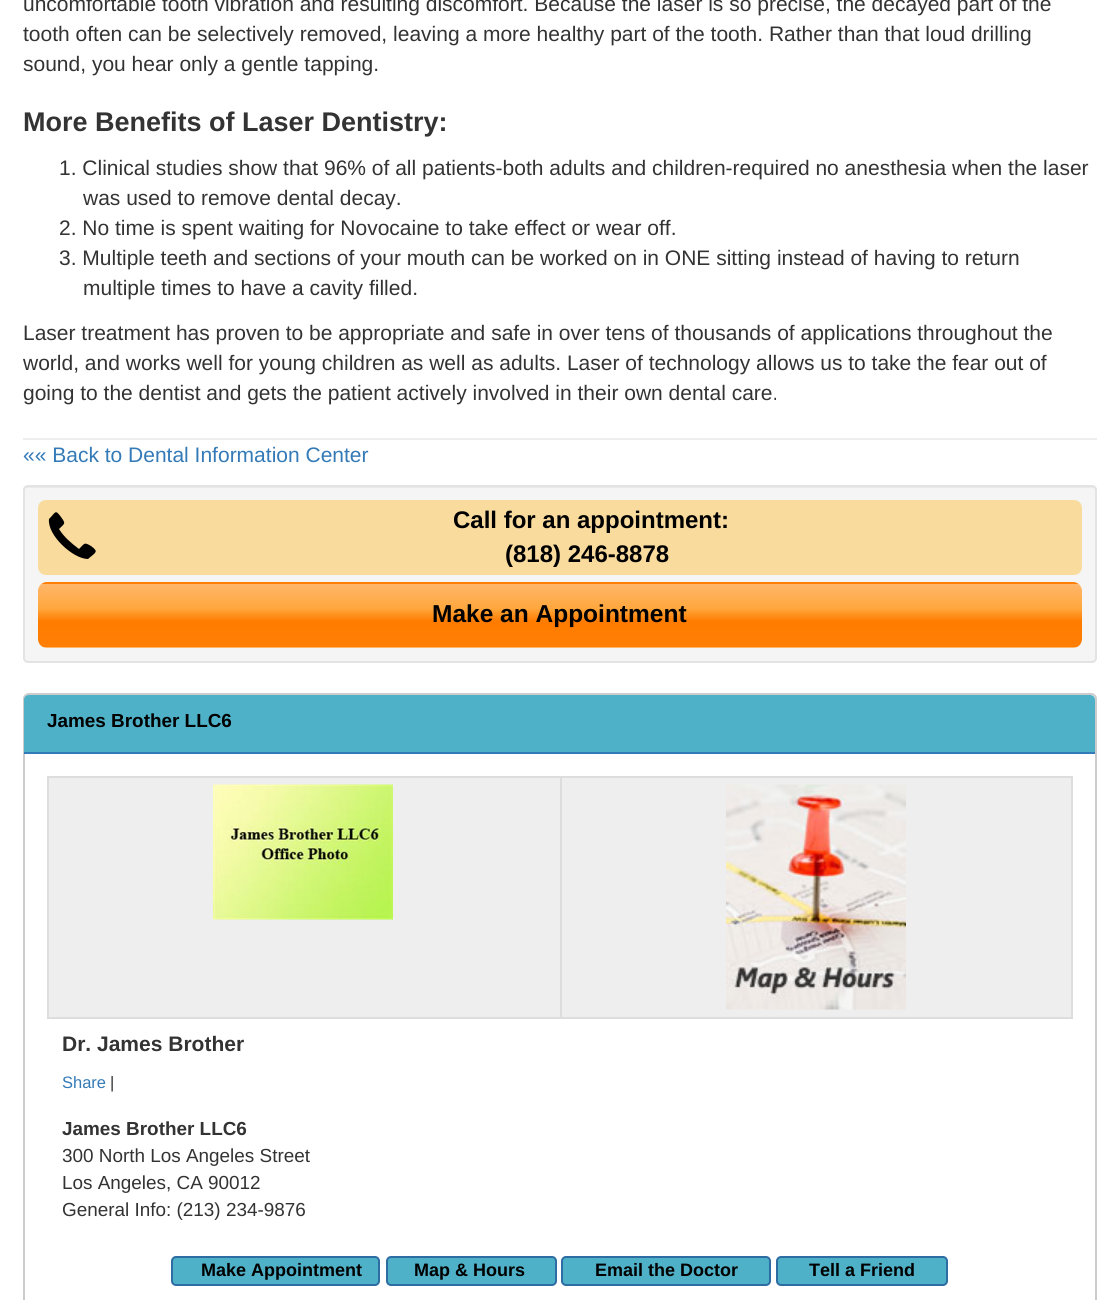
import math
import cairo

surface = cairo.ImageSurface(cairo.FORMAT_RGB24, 1119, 1300)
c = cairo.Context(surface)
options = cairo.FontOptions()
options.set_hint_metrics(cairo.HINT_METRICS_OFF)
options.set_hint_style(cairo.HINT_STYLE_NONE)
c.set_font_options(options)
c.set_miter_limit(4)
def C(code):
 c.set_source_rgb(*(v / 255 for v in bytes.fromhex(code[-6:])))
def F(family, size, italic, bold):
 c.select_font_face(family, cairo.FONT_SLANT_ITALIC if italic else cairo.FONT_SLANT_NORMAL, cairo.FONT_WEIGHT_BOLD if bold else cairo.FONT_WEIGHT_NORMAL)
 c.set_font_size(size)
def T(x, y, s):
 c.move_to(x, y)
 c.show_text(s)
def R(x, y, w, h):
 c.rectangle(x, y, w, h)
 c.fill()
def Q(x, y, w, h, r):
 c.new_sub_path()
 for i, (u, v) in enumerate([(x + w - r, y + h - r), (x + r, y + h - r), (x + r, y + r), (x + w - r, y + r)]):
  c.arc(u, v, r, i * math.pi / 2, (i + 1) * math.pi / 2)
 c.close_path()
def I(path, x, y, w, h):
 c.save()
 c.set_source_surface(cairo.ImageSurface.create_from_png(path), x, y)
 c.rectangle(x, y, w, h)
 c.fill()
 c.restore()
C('ffffff')
c.paint()
F('Liberation Sans',21,0,0)
C('333333')
T(23,11,'uncomfortable tooth vibration and resulting discomfort. Because the laser is so precise, the decayed part of the')
T(23,41,'tooth often can be selectively removed, leaving a more healthy part of the tooth. Rather than that loud drilling')
T(23,71,'sound, you hear only a gentle tapping.')
F('Liberation Sans',27,0,1)
T(23,131,'More Benefits of Laser Dentistry:')
F('Liberation Sans',21,0,0)
T(59,175,'1. Clinical studies show that 96% of all patients-both adults and children-required no anesthesia when the laser')
T(83,205,'was used to remove dental decay.')
T(59,235,'2. No time is spent waiting for Novocaine to take effect or wear off.')
T(59,265,'3. Multiple teeth and sections of your mouth can be worked on in ONE sitting instead of having to return')
T(83,295,'multiple times to have a cavity filled.')
T(23,340,'Laser treatment has proven to be appropriate and safe in over tens of thousands of applications throughout the')
T(23,370,'world, and works well for young children as well as adults. Laser of technology allows us to take the fear out of')
T(23,400,'going to the dentist and gets the patient actively involved in their own dental care.')
C('eeeeee')
R(23,438,1074,2)
C('337ab7')
T(23,462,'«« Back to Dental Information Center')
C('f5f5f5')
Q(23,485,1074,178,5)
c.fill()
C('e9e9e9')
c.new_path()
c.move_to(27,488)
c.line_to(1092,488)
c.curve_to(1094,488,1095,489,1095,490)
c.curve_to(1095,488,1094,486,1092,486)
c.line_to(27,486)
c.curve_to(25,486,24,488,24,490)
c.curve_to(24,489,25,488,27,488)
c.close_path()
c.fill()
Q(24,486,1072,176,4)
C('e3e3e3')
c.stroke()
C('f9db9e')
Q(38,500,1044,75,8)
c.fill()
C('000000')
c.new_path()
c.move_to(49,519)
c.curve_to(47,535,73,559,88,559)
c.curve_to(96,552,99,552,91,546)
c.curve_to(84,542,85,543,79,549)
c.curve_to(71,543,64,537,59,529)
c.curve_to(65,523,66,524,61,517)
c.curve_to(55,509,56,512,49,519)
c.close_path()
c.fill()
F('Liberation Sans',24,0,1)
T(453,528,'Call for an appointment:')
T(505,562,'(818) 246-8878')
c.save()
Q(38,582,1044,66,9)
c.clip()
gradient = cairo.LinearGradient(560,520,560,584)
gradient.add_color_stop_rgba(0,1,0.718,0.42,1)
gradient.add_color_stop_rgba(.4,1,0.655,0.239,1)
gradient.add_color_stop_rgba(.6,1,0.486,0,1)
gradient.add_color_stop_rgba(1,1,0.498,0.016,1)
c.set_source(gradient)
R(38,582,1044,2)
gradient = cairo.LinearGradient(560,583,560,647)
gradient.add_color_stop_rgba(0,1,0.718,0.42,1)
gradient.add_color_stop_rgba(.4,1,0.655,0.239,1)
gradient.add_color_stop_rgba(.6,1,0.486,0,1)
gradient.add_color_stop_rgba(1,1,0.498,0.016,1)
c.set_source(gradient)
R(38,584,1044,63)
gradient = cairo.LinearGradient(560,646,560,710)
gradient.add_color_stop_rgba(0,1,0.718,0.42,1)
gradient.add_color_stop_rgba(.4,1,0.655,0.239,1)
gradient.add_color_stop_rgba(.6,1,0.486,0,1)
gradient.add_color_stop_rgba(1,1,0.498,0.016,1)
c.set_source(gradient)
R(38,647,1044,1)
c.restore()
F('Liberation Sans',24.5,0,1)
T(432,622,'Make an Appointment')
Q(24,694,1072,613,5)
C('cccccc')
c.stroke()
C('4eb1c8')
c.new_path()
c.move_to(29,695)
c.line_to(1090,695)
c.curve_to(1093,695,1095,697,1095,700)
c.line_to(1095,753)
c.line_to(24,753)
c.line_to(24,700)
c.curve_to(24,697,26,695,29,695)
c.close_path()
c.fill()
C('337ab7')
R(24,752,1071,2)
F('Liberation Sans',18.9,0,1)
C('000000')
T(47,727,'James Brother LLC6')
C('eeeeee')
R(49,778,1022,239)
C('dddddd')
R(47,776,1026,2)
R(1071,776,2,243)
R(47,1017,1026,2)
R(47,776,2,243)
I('1.png',213,784,180,136)
R(560,776,2,243)
I('2.png',726,784,180,226)
F('Liberation Sans',21,0,1)
C('333333')
T(62,1051,'Dr. James Brother')
F('Liberation Sans',16.5,0,0)
C('337ab7')
T(62,1088,'Share')
C('333333')
T(110,1088,'|')
F('Liberation Sans',18.9,0,1)
T(62,1135,'James Brother LLC6')
F('Liberation Sans',18.9,0,0)
T(62,1162,'300 North Los Angeles Street')
T(62,1189,'Los Angeles, CA 90012')
T(62,1216,'General Info: (213) 234-9876')
C('4eb1c8')
Q(172,1257,207,28,4)
c.fill_preserve()
C('2e6da4')
c.stroke()
F('Liberation Sans',18,0,1)
C('000000')
T(201,1276,'Make Appointment')
C('4eb1c8')
Q(387,1257,169,28,4)
c.fill_preserve()
C('2e6da4')
c.stroke()
C('000000')
T(414,1276,'Map & Hours')
C('4eb1c8')
Q(562,1257,208,28,4)
c.fill_preserve()
C('2e6da4')
c.stroke()
C('000000')
T(595,1276,'Email the Doctor')
C('4eb1c8')
Q(777,1257,170,28,4)
c.fill_preserve()
C('2e6da4')
c.stroke()
C('000000')
T(809,1276,'Tell a Friend')
surface.write_to_png('o.png')
